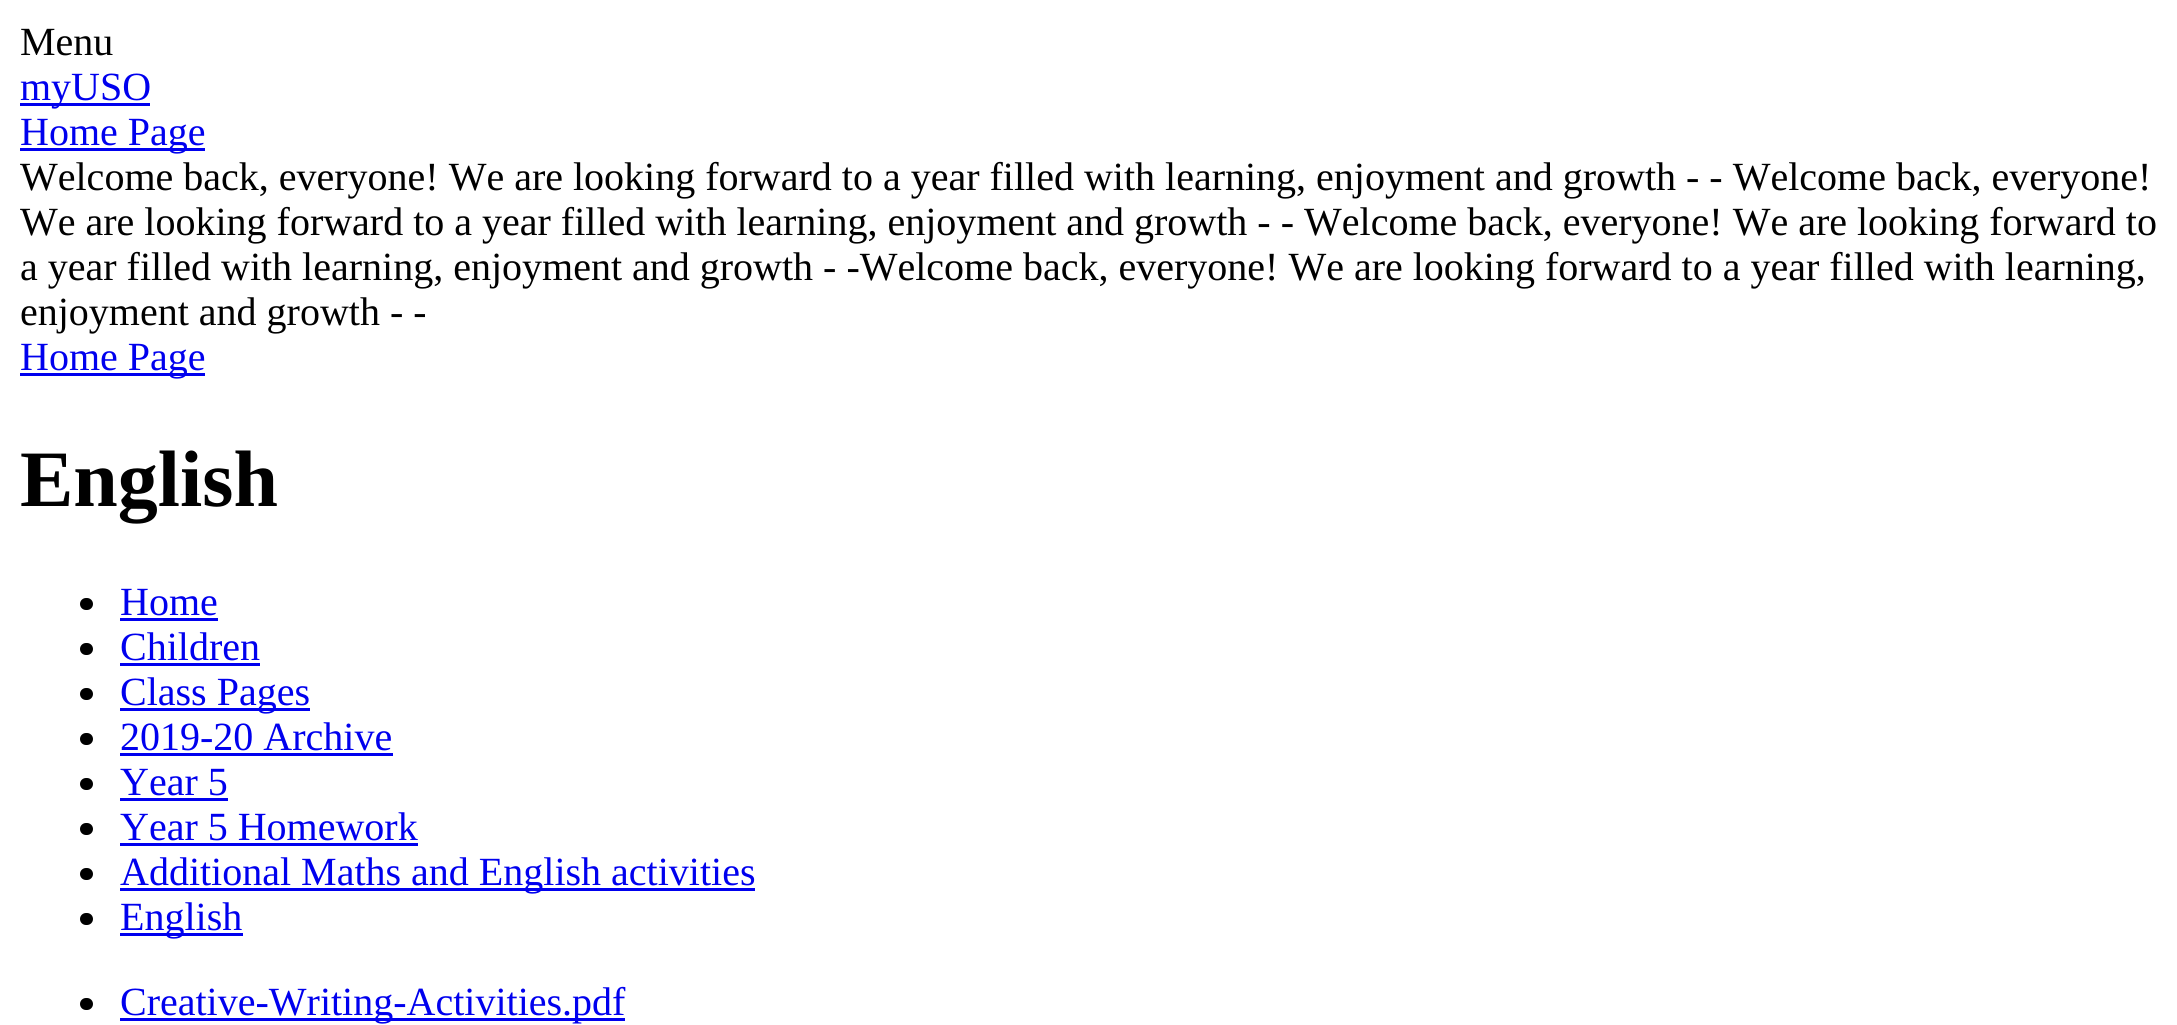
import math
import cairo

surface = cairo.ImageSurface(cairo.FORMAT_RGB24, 2177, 1025)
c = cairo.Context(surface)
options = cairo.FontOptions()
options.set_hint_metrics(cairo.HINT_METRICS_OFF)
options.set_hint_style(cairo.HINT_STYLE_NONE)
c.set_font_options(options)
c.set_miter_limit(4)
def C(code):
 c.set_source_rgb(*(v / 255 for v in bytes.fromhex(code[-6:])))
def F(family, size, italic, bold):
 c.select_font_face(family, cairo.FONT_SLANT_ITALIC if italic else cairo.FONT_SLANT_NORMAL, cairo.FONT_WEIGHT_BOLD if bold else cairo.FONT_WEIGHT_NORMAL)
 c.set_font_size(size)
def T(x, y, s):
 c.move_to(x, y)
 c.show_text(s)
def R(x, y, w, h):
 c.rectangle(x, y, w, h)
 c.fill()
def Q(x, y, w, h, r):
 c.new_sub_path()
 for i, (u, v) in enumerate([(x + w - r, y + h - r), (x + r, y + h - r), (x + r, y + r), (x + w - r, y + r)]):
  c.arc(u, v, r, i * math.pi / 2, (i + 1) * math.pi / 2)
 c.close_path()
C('ffffff')
c.paint()
F('Liberation Serif',40,0,0)
C('000000')
T(20,55,'Menu')
C('0000ee')
R(20,103,130,3)
T(20,100,'myUSO')
R(20,148,185,3)
T(20,145,'Home Page')
C('000000')
T(20,190,'Welcome back, everyone! We are looking forward to a year filled with learning, enjoyment and growth - - Welcome back, everyone!')
T(20,235,'We are looking forward to a year filled with learning, enjoyment and growth - - Welcome back, everyone! We are looking forward to')
T(20,280,'a year filled with learning, enjoyment and growth - -Welcome back, everyone! We are looking forward to a year filled with learning,')
T(20,325,'enjoyment and growth - -')
C('0000ee')
R(20,373,185,3)
T(20,370,'Home Page')
F('Liberation Serif',80,0,1)
C('000000')
T(20,506,'English')
Q(80,598,13,12,6)
c.fill()
F('Liberation Serif',40,0,0)
C('0000ee')
T(120,615,'Home')
R(120,618,98,3)
C('000000')
Q(80,643,13,12,6)
c.fill()
C('0000ee')
T(120,660,'Children')
R(120,663,140,3)
C('000000')
Q(80,688,13,12,6)
c.fill()
C('0000ee')
R(120,708,190,3)
T(120,705,'Class Pages')
C('000000')
Q(80,733,13,12,6)
c.fill()
C('0000ee')
T(120,750,'2019-20 Archive')
R(120,753,273,3)
C('000000')
Q(80,778,13,12,6)
c.fill()
C('0000ee')
T(120,795,'Year 5')
R(120,798,108,3)
C('000000')
Q(80,823,13,12,6)
c.fill()
C('0000ee')
T(120,840,'Year 5 Homework')
R(120,843,298,3)
C('000000')
Q(80,868,13,12,6)
c.fill()
C('0000ee')
R(120,888,635,3)
T(120,885,'Additional Maths and English activities')
C('000000')
Q(80,913,13,12,6)
c.fill()
C('0000ee')
R(120,933,123,3)
T(120,930,'English')
C('000000')
Q(80,998,13,12,6)
c.fill()
C('0000ee')
R(120,1018,505,3)
T(120,1015,'Creative-Writing-Activities.pdf')
surface.write_to_png('o.png')
